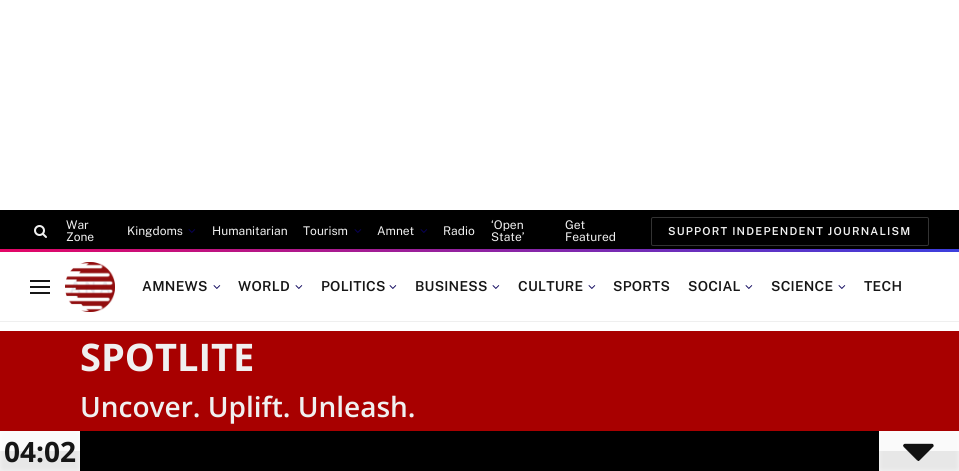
import math
import cairo

surface = cairo.ImageSurface(cairo.FORMAT_RGB24, 959, 471)
c = cairo.Context(surface)
options = cairo.FontOptions()
options.set_hint_metrics(cairo.HINT_METRICS_OFF)
options.set_hint_style(cairo.HINT_STYLE_NONE)
c.set_font_options(options)
c.set_miter_limit(4)
def C(code):
 c.set_source_rgb(*(v / 255 for v in bytes.fromhex(code[-6:])))
def F(family, size, italic, bold):
 c.select_font_face(family, cairo.FONT_SLANT_ITALIC if italic else cairo.FONT_SLANT_NORMAL, cairo.FONT_WEIGHT_BOLD if bold else cairo.FONT_WEIGHT_NORMAL)
 c.set_font_size(size)
def T(x, y, s):
 c.move_to(x, y)
 c.show_text(s)
def L(x, y, s, letter, word):
 c.move_to(x, y)
 for ch in s:
  c.show_text(ch)
  c.rel_move_to(letter + word * (ch == ' '), 0)
def R(x, y, w, h):
 c.rectangle(x, y, w, h)
 c.fill()
def Q(x, y, w, h, r):
 c.new_sub_path()
 for i, (u, v) in enumerate([(x + w - r, y + h - r), (x + r, y + h - r), (x + r, y + r), (x + w - r, y + r)]):
  c.arc(u, v, r, i * math.pi / 2, (i + 1) * math.pi / 2)
 c.close_path()
def I(path, x, y, w, h):
 c.save()
 c.set_source_surface(cairo.ImageSurface.create_from_png(path), x, y)
 c.rectangle(x, y, w, h)
 c.fill()
 c.restore()
C('ffffff')
c.paint()
C('000000')
R(0,210,959,39)
I('1.png',0,249,959,3)
I('2.png',34,225,13,13)
F('Public Sans',12,0,0)
C('f0f0f0')
T(66,229,'War')
T(66,241,'Zone')
T(127,235,'Kingdoms')
I('3.png',188,229,8,4)
T(212,235,'Humanitarian')
T(303,235,'Tourism')
I('3.png',354,229,8,4)
T(377,235,'Amnet')
I('3.png',420,229,8,4)
T(443,235,'Radio')
T(491,229,'‘Open')
T(491,241,'State’')
T(565,229,'Get')
T(565,241,'Featured')
Q(651.5,217.5,277,28,1.5)
C('333333')
c.set_line_width(1)
c.stroke()
F('Public Sans SemiBold',11,0,0)
C('f0f0f0')
L(668,235,'SUPPORT INDEPENDENT JOURNALISM',1.2,0)
C('efefef')
R(0,321,959,1)
C('161616')
R(30,292,20,2)
R(30,280,20,2)
R(30,286,20,2)
I('4.png',65,262,50,50)
F('Public Sans SemiBold',13.75,0,0)
L(142,291,'AMNEWS',.25,0)
I('5.png',213,285,8,4)
L(238,291,'WORLD',.25,0)
I('5.png',295,285,8,4)
L(321,291,'POLITICS',.25,0)
I('5.png',389,285,8,4)
L(415,291,'BUSINESS',.25,0)
I('5.png',492,285,8,4)
L(518,291,'CULTURE',.25,0)
I('5.png',588,285,8,4)
L(613,291,'SPORTS',.25,0)
L(688,291,'SOCIAL',.25,0)
I('5.png',745,285,8,4)
L(771,291,'SCIENCE',.25,0)
I('5.png',838,285,8,4)
L(864,291,'TECH',.25,0)
C('a80000')
R(0,331,959,100)
F('Open Sans',38,0,1)
C('f0f0f0')
T(80,371,'SPOTLITE')
F('Open Sans SemiBold',28,0,0)
T(80,417,'Uncover. Uplift. Unleash.')
I('6.png',0,431,80,40)
F('Open Sans',28,0,1)
C('161616')
T(4,462,'04:02')
C('000000')
R(80,431,799,40)
I('7.png',879,431,80,40)
surface.write_to_png('o.png')
